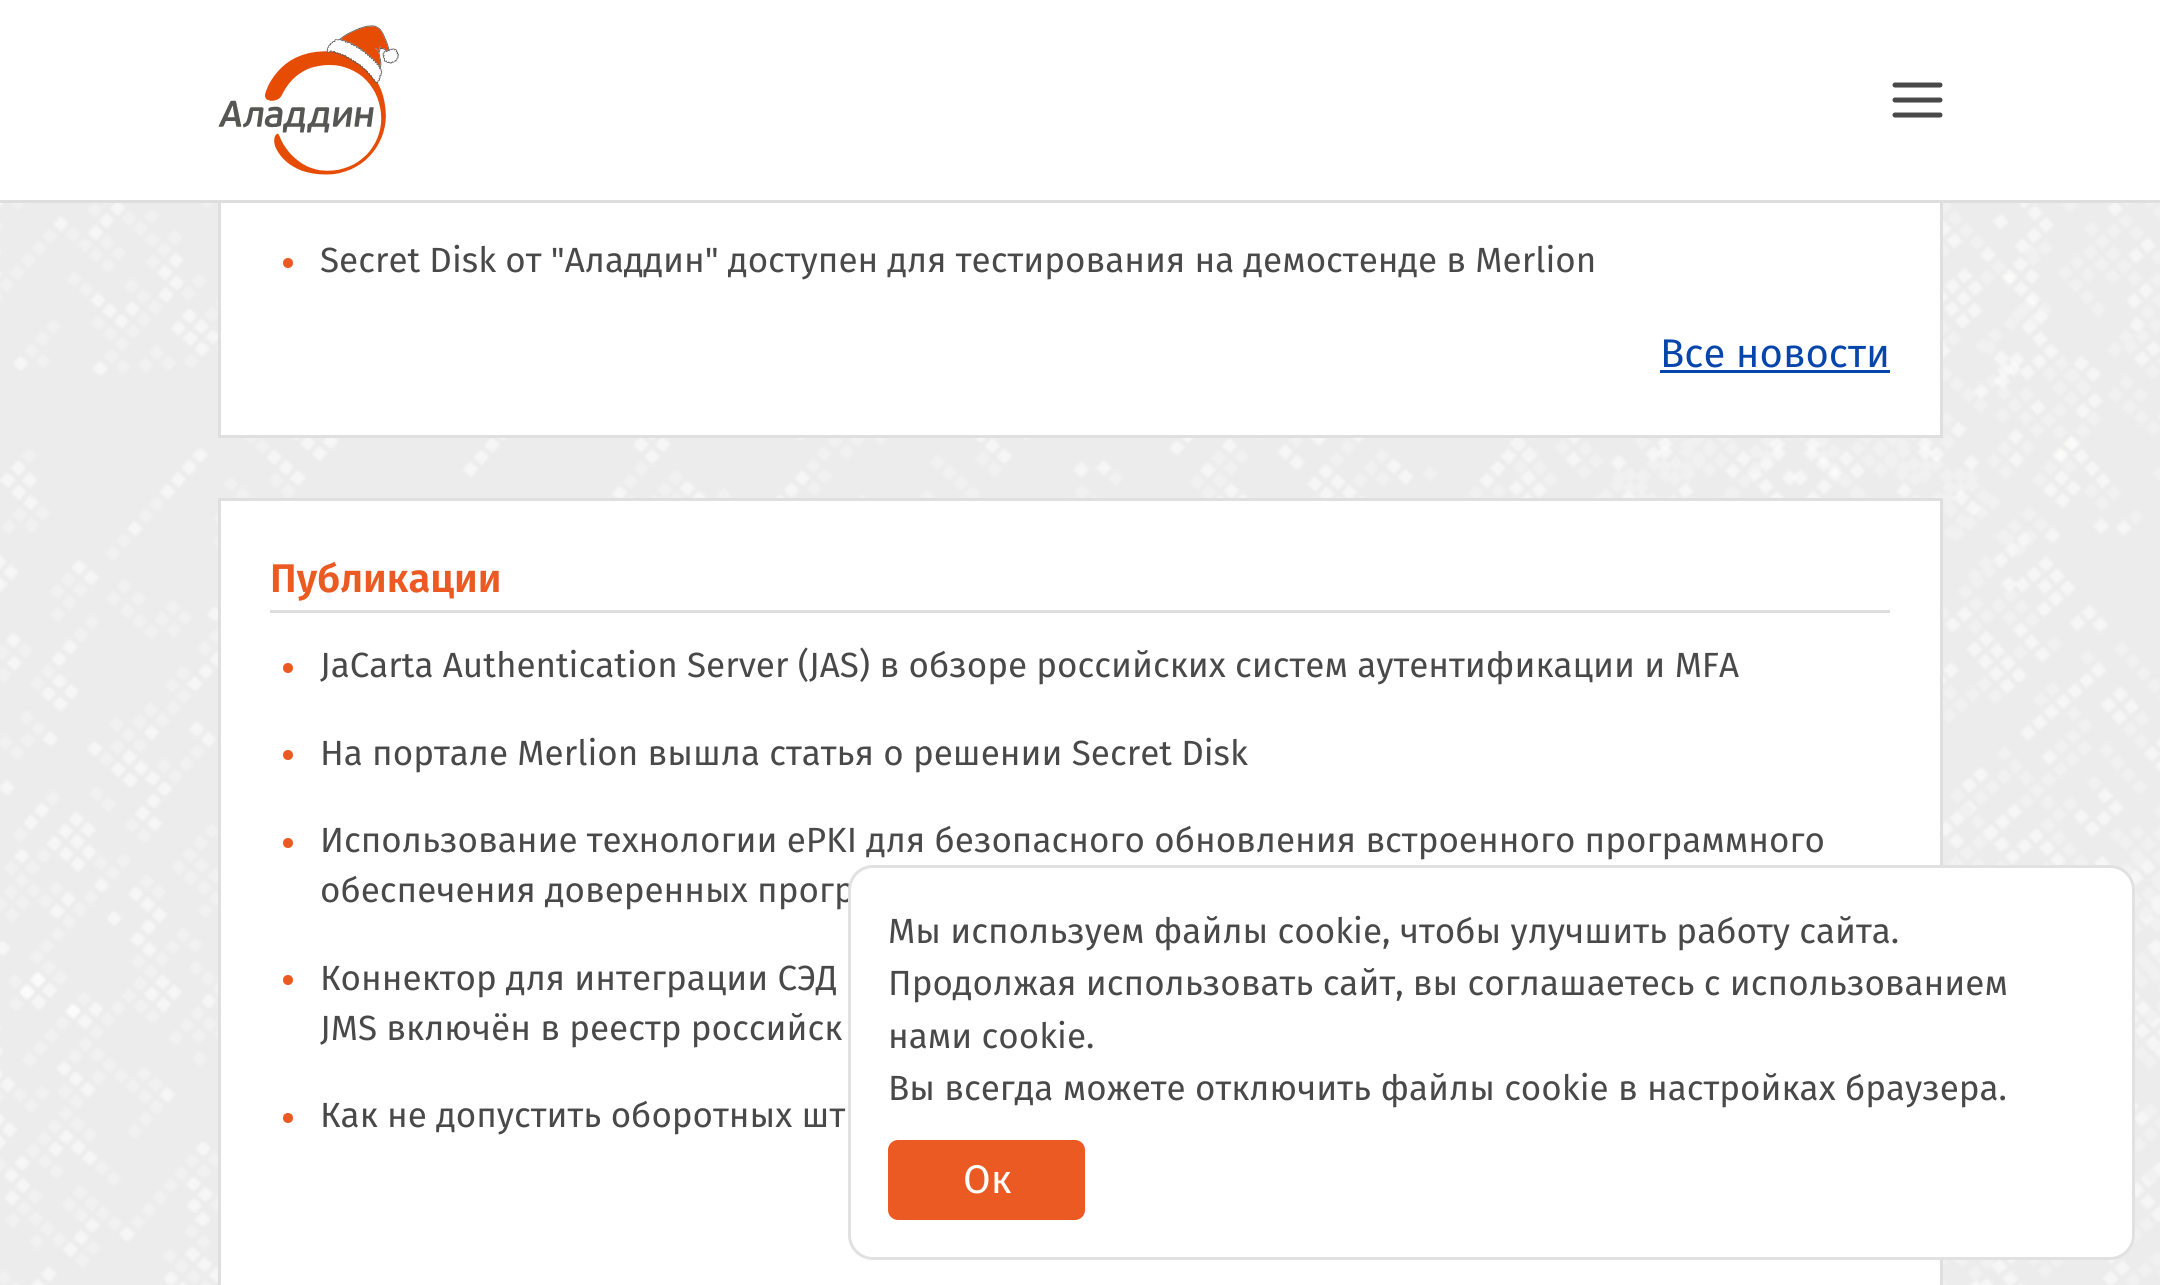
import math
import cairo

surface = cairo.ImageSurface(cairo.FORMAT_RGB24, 2160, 1285)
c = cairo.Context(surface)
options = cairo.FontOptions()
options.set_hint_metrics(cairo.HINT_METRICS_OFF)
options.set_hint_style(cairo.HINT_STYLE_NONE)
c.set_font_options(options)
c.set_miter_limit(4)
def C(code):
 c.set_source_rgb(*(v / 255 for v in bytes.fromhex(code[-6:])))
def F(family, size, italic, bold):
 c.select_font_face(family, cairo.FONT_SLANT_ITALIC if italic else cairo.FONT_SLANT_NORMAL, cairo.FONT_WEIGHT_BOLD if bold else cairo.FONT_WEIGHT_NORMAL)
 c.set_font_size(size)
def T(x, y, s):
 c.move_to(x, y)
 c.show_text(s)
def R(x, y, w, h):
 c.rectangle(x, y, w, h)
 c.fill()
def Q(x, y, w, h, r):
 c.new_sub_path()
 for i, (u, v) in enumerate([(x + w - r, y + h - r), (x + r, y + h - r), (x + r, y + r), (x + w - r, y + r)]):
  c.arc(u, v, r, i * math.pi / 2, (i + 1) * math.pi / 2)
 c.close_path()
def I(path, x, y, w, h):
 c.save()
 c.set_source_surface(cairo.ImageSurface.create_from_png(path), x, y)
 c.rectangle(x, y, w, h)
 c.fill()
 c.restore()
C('ffffff')
c.paint()
I('1.png',0,203,2160,1082)
C('ffffff')
R(221,203,1719,232)
c.rectangle(219.5,-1.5,1722,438)
C('dfdfdf')
c.set_line_width(3)
c.stroke()
C('ffffff')
R(218,0,1725,200)
C('dedede')
R(0,200,2160,3)
I('2.png',218,25,181,150)
c.new_path()
c.move_to(1895,100)
c.line_to(1940,100)
c.move_to(1895,85)
c.line_to(1940,85)
c.move_to(1895,115)
c.line_to(1940,115)
C('494949')
c.set_line_width(5)
c.set_line_cap(cairo.LINE_CAP_ROUND)
c.set_line_join(cairo.LINE_JOIN_ROUND)
c.stroke()
C('ea5a22')
c.arc(288,263,5,0,2 * math.pi)
c.fill()
F('Fira Sans',35,0,0)
C('494949')
T(320,272,'Secret Disk от "Аладдин" доступен для тестирования на демостенде в Merlion')
F('Fira Sans',40,0,0)
C('0645ab')
T(1660,367,'Все новости')
R(1660,370,230,3)
C('ffffff')
c.rectangle(219.5,499.5,1722,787)
c.fill_preserve()
C('dfdfdf')
c.set_line_width(3)
c.set_line_cap(cairo.LINE_CAP_BUTT)
c.set_line_join(cairo.LINE_JOIN_MITER)
c.stroke()
C('dedede')
R(270,610,1620,3)
F('Fira Sans SemiBold',40,0,0)
C('ea5a22')
T(270,592,'Публикации')
c.new_path()
c.arc(288,668,5,0,2 * math.pi)
c.fill()
F('Fira Sans',35,0,0)
C('494949')
T(320,677,'JaCarta Authentication Server (JAS) в обзоре российских систем аутентификации и MFA')
C('ea5a22')
c.new_path()
c.arc(288,755,5,0,2 * math.pi)
c.fill()
C('494949')
T(320,765,'На портале Merlion вышла статья о решении Secret Disk')
C('ea5a22')
c.new_path()
c.arc(288,843,5,0,2 * math.pi)
c.fill()
C('494949')
T(320,852,'Использование технологии ePKI для безопасного обновления встроенного программного')
T(320,902,'обеспечения доверенных прогр')
C('ea5a22')
c.new_path()
c.arc(288,980,5,0,2 * math.pi)
c.fill()
C('494949')
T(320,990,'Коннектор для интеграции СЭД')
T(320,1040,'JMS включён в реестр российск')
C('ea5a22')
c.new_path()
c.arc(288,1118,5,0,2 * math.pi)
c.fill()
C('494949')
T(320,1127,'Как не допустить оборотных шт')
C('ffffff')
Q(848,865,1287,395,25)
c.fill()
Q(849.5,866.5,1284,392,23.5)
c.set_source_rgba(0,0,0,0.12)
c.stroke()
C('494949')
T(888,943,'Мы используем файлы cookie, чтобы улучшить работу сайта.')
T(888,995,'Продолжая использовать сайт, вы соглашаетесь с использованием')
T(888,1048,'нами cookie.')
T(888,1100,'Вы всегда можете отключить файлы cookie в настройках браузера.')
C('ea5a22')
Q(888,1140,197,80,10)
c.fill()
F('Fira Sans',40,0,0)
C('ffffff')
T(963,1193,'Ок')
surface.write_to_png('o.png')
